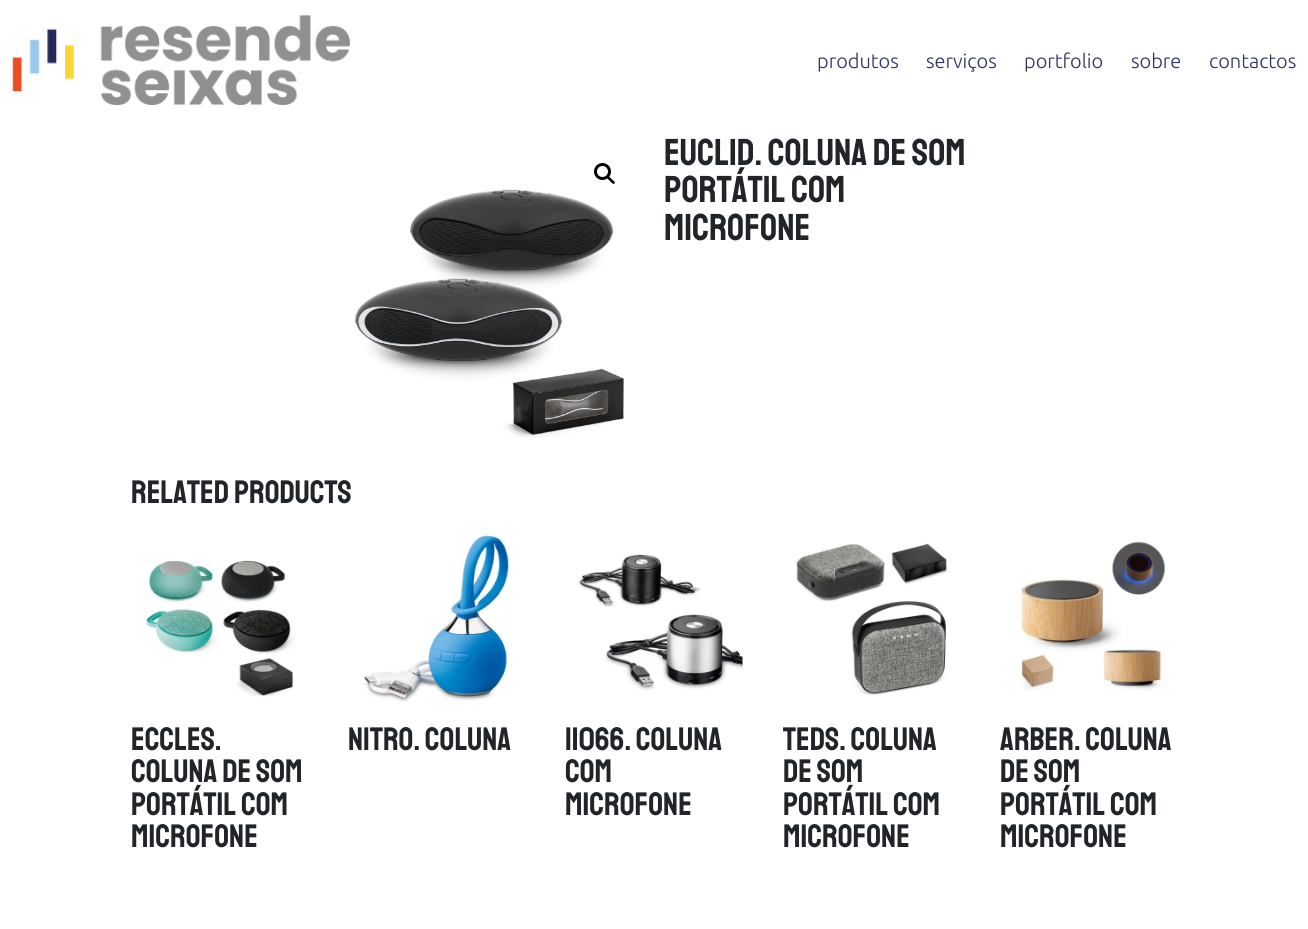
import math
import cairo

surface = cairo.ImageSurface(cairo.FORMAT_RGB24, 1308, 929)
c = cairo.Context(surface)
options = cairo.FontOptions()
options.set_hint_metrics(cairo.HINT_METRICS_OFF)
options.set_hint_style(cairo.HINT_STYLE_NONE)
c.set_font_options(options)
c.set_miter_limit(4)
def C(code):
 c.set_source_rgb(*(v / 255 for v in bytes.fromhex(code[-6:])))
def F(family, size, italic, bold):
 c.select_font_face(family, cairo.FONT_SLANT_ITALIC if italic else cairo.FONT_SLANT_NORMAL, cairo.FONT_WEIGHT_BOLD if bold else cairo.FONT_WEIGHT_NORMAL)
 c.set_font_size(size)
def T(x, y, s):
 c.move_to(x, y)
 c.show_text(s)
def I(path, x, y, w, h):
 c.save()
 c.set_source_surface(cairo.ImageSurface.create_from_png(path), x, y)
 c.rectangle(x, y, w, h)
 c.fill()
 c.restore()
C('ffffff')
c.paint()
I('1.png',12,15,338,90)
F('Ubuntu Light',20,0,0)
C('31325d')
T(817,68,'produtos')
T(926,68,'serviços')
T(1024,68,'portfolio')
T(1131,68,'sobre')
T(1209,68,'contactos')
c.new_path()
c.arc(602.5,171.5,7,0,2 * math.pi)
C('000000')
c.set_line_width(3)
c.stroke()
c.new_path()
c.move_to(607.5,176.5)
c.curve_to(608.5,175,611,178.5,611.5,179)
c.curve_to(612.5,180,616,182,614.5,183.5)
c.curve_to(613,185,610.5,181.5,610,181)
c.curve_to(609,180,606,178,607.5,176.5)
c.close_path()
c.fill()
I('2.png',355,189,269,249)
F('Staatliches',37.5,0,0)
C('212529')
T(664,165,'EUCLID. Coluna de som')
T(664,202,'portátil com')
T(664,240,'microfone')
F('Staatliches',32.5,0,0)
T(131,503,'Related products')
I('3.png',145,560,150,137)
T(131,750,'ECCLES.')
T(131,782,'Coluna de som')
T(131,815,'portátil com')
T(131,847,'microfone')
I('4.png',363,530,148,172)
T(348,750,'NITRO. Coluna')
I('5.png',578,554,165,137)
T(565,750,'11066. Coluna')
T(565,782,'com')
T(565,815,'microfone')
I('6.png',796,543,152,152)
T(783,750,'TEDS. Coluna')
T(783,782,'de som')
T(783,815,'portátil com')
T(783,847,'microfone')
I('7.png',1020,541,146,150)
T(1000,750,'ARBER. Coluna')
T(1000,782,'de som')
T(1000,815,'portátil com')
T(1000,847,'microfone')
surface.write_to_png('o.png')
